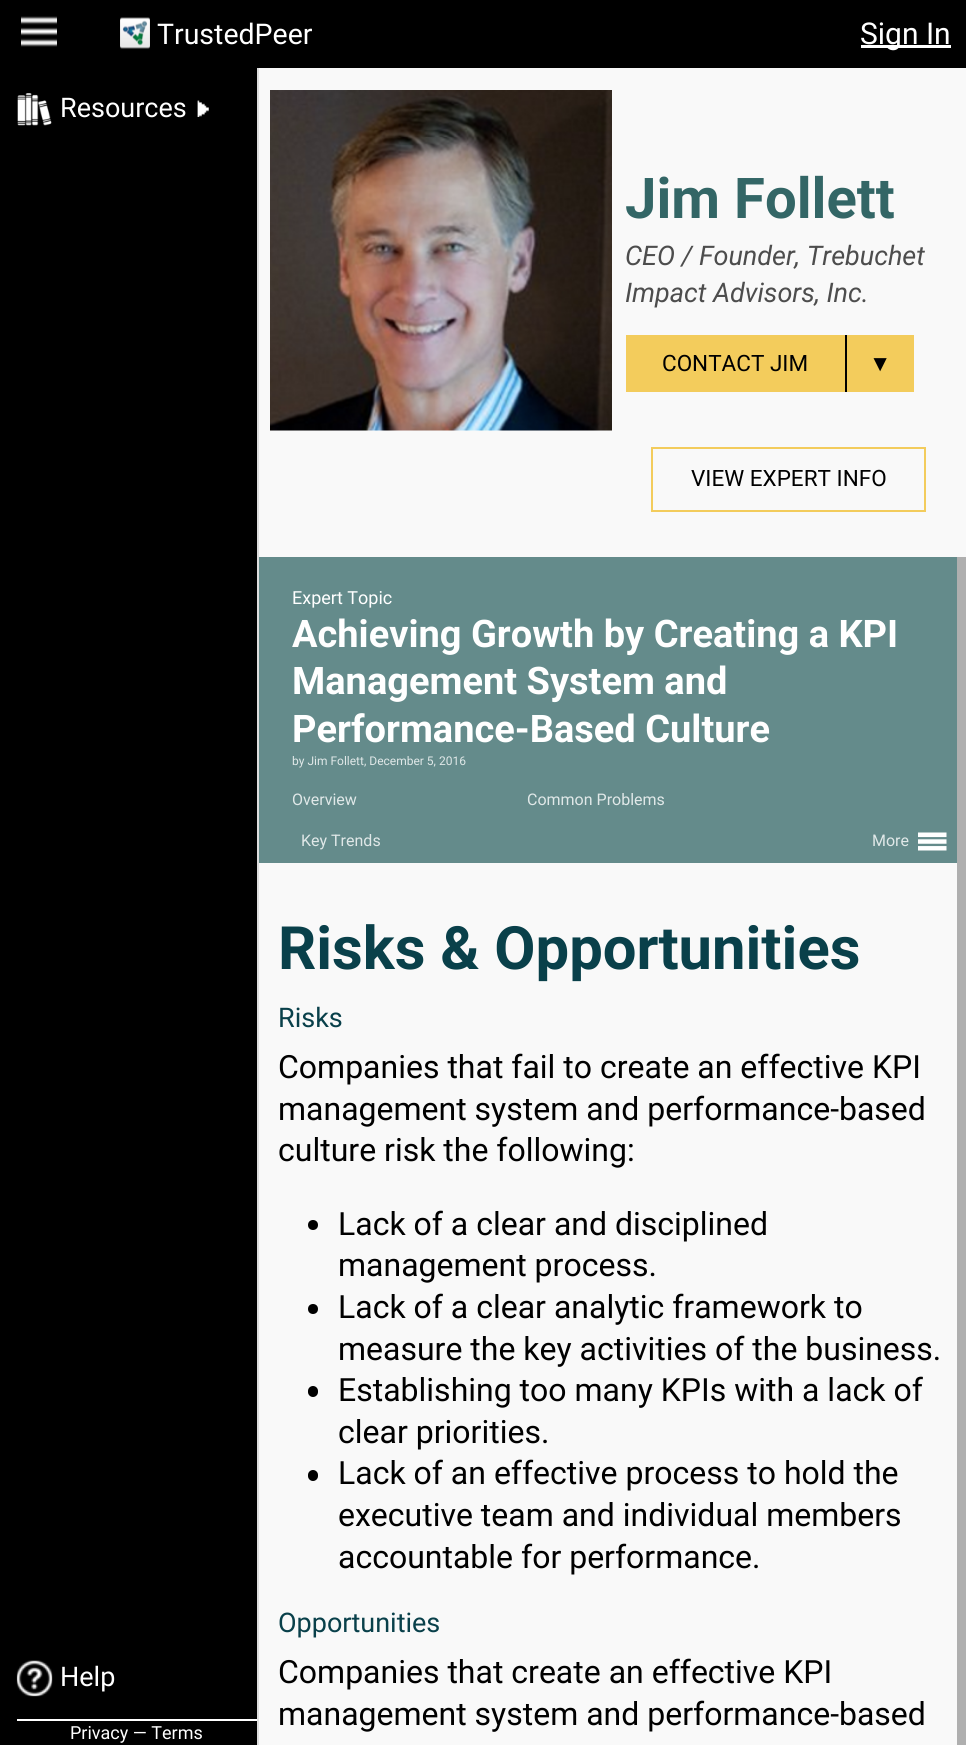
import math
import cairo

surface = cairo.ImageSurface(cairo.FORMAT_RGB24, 966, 1745)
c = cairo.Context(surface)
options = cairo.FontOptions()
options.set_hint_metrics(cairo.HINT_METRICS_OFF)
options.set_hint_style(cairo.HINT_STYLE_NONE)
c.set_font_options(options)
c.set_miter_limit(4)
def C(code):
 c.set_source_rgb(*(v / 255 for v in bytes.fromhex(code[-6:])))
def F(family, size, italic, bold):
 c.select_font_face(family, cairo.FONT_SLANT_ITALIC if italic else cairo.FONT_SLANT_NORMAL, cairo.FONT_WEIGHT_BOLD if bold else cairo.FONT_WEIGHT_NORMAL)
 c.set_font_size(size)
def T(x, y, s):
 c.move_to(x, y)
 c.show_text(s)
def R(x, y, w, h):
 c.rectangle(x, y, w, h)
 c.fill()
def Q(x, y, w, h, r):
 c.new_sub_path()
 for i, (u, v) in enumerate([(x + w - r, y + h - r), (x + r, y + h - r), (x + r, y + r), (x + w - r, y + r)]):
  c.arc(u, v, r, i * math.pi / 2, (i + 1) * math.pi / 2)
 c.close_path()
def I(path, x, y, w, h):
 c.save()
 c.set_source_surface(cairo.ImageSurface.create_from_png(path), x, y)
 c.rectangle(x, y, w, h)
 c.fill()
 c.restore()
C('f9f9f9')
c.paint()
C('000000')
R(0,0,966,68)
I('1.png',21,16,36,31)
I('2.png',120,17,30,32)
F('Roboto',28.5,0,0)
C('ffffff')
T(157,44,'TrustedPeer')
R(861,45,90,3)
F('Roboto',30,0,0)
T(860,44,'Sign In')
C('000000')
R(0,68,257,1677)
C('dddddd')
R(257,68,2,1677)
I('3.png',17,93,35,33)
F('Roboto',27,0,0)
C('ffffff')
T(60,117,'Resources')
I('4.png',197,100,12,17)
I('5.png',16,1660,37,37)
T(60,1686,'Help')
R(17,1719,240,2)
F('Roboto',18,0,0)
T(70,1739,'Privacy — Terms')
I('6.png',270,90,342,341)
F('Roboto',56.25,0,1)
C('336666')
T(625,218,'Jim Follett')
F('Roboto',27,1,0)
C('4d4d4d')
T(625,265,'CEO / Founder, Trebuchet')
T(625,302,'Impact Advisors, Inc.')
C('f3cc5c')
R(626,335,288,57)
F('Roboto',22.5,0,0)
C('000000')
T(662,371,'CONTACT JIM')
R(845,335,2,57)
F('Liberation Sans',22.5,0,0)
T(869,371,'▼')
c.rectangle(652,448,273,63)
C('f3cc5c')
c.stroke()
F('Roboto',22.5,0,0)
C('000000')
T(691,486,'VIEW EXPERT INFO')
C('afafaf')
R(957,557,9,1188)
C('648b8b')
R(259,557,698,306)
F('Roboto',18,0,0)
C('ffffff')
T(292,604,'Expert Topic')
F('Roboto',38,0,1)
T(292,647,'Achieving Growth by Creating a KPI')
T(292,694,'Management System and')
T(292,742,'Performance-Based Culture')
F('Roboto',12,0,0)
C('e0e8e8')
T(292,765,'by Jim Follett, December 5, 2016')
F('Roboto',16,0,0)
T(292,805,'Overview')
T(527,805,'Common Problems')
T(301,846,'Key Trends')
I('7.png',918,832,29,19)
T(872,846,'More')
F('Roboto',59.75,0,1)
C('09404a')
T(278,969,'Risks & Opportunities')
F('Roboto',27,0,0)
T(278,1027,'Risks')
F('Roboto',32,0,0)
C('000000')
T(278,1078,'Companies that fail to create an effective KPI')
T(278,1120,'management system and performance-based')
T(278,1161,'culture risk the following:')
c.new_path()
c.arc(313,1225,5,0,2 * math.pi)
c.fill()
T(338,1235,'Lack of a clear and disciplined')
T(338,1276,'management process.')
c.new_path()
c.arc(313,1309,5,0,2 * math.pi)
c.fill()
T(338,1318,'Lack of a clear analytic framework to')
T(338,1360,'measure the key activities of the business.')
Q(308,1386,10,11,5)
c.fill()
T(338,1401,'Establishing too many KPIs with a lack of')
T(338,1443,'clear priorities.')
Q(308,1470,10,11,5)
c.fill()
T(338,1484,'Lack of an effective process to hold the')
T(338,1526,'executive team and individual members')
T(338,1568,'accountable for performance.')
F('Roboto',27,0,0)
C('09404a')
T(278,1632,'Opportunities')
F('Roboto',32,0,0)
C('000000')
T(278,1683,'Companies that create an effective KPI')
T(278,1725,'management system and performance-based')
surface.write_to_png('o.png')
